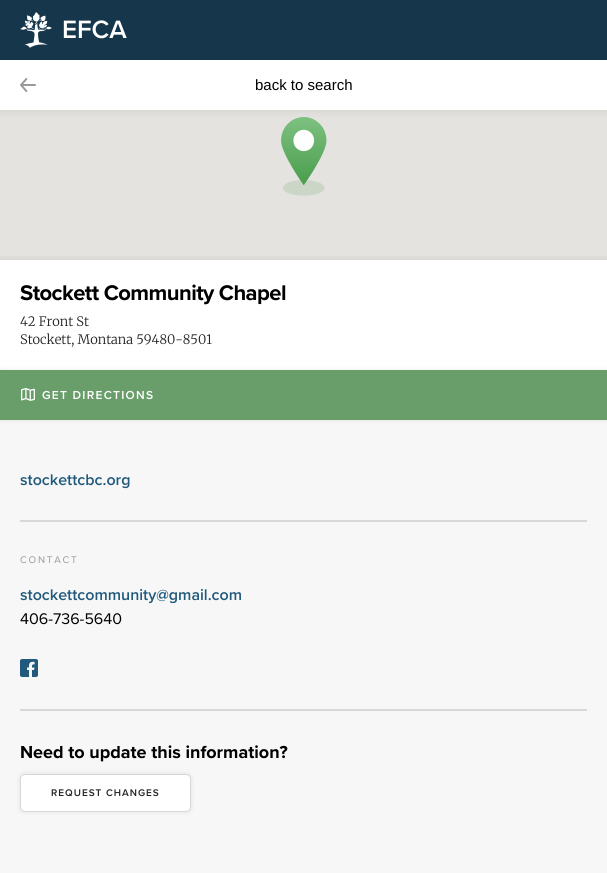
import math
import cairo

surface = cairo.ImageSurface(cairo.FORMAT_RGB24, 607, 873)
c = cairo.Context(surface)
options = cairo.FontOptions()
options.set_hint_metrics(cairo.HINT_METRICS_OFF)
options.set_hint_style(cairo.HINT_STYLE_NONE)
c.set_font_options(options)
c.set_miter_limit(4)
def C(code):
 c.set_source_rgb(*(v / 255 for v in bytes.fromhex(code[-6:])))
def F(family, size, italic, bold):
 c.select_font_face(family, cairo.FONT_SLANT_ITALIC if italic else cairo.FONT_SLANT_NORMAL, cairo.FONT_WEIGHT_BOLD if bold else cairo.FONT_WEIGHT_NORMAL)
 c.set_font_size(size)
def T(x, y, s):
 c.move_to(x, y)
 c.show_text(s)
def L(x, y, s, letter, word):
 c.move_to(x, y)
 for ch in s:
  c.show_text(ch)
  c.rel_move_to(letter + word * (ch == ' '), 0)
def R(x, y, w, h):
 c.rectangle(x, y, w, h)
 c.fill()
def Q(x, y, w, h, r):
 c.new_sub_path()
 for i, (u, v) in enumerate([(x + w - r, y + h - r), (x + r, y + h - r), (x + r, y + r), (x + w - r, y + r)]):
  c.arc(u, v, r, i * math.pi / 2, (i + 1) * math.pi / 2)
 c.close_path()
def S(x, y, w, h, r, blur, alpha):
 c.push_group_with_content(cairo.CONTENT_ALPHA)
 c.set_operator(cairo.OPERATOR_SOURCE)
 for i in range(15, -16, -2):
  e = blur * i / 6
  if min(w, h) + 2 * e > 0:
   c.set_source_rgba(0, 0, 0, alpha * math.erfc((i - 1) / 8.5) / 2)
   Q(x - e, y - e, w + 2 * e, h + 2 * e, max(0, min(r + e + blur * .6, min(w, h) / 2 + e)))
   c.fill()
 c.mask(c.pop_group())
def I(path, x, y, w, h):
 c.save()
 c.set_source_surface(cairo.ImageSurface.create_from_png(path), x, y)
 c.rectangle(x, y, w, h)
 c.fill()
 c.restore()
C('f7f7f7')
c.paint()
C('e5e3df')
R(0,110,607,150)
I('5.png',281,117,46,79)
C('000000')
S(0,60,607,50,0,5,.1)
C('16364c')
R(0,0,607,60)
I('1.png',20,12,32,36)
F('Proxima Nova SemiBold',26,0,0)
C('ffffff')
T(62,38,'EFCA')
R(0,60,607,50)
I('2.png',20,78,16,14)
F('Liberation Sans',15,0,0)
C('000000')
T(255,90,'back to search')
c.save()
c.rectangle(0,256,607,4)
c.clip()
C('000000')
S(0,260,607,613,0,5,.1)
c.restore()
C('ffffff')
R(0,260,607,110)
F('Proxima Nova',22,0,1)
C('000000')
L(20,300,'Stockett Community Chapel',-.55,0)
F('Merriweather Light',13,0,0)
C('222222')
T(20,326,'42 Front St')
T(20,344,'Stockett, Montana 59480-8501')
C('000000')
S(0,370,607,50,0,2.5,.1)
C('699e6b')
R(0,370,607,50)
I('3.png',21,387,14,14)
F('Proxima Nova SemiBold',12,0,0)
C('ffffff')
L(42,399,'GET DIRECTIONS',1.25,0)
C('d8d8d8')
R(20,520,567,2)
F('Proxima Nova SemiBold',16,0,0)
C('215a7c')
T(20,485,'stockettcbc.org')
C('d8d8d8')
R(20,709,567,2)
F('Proxima Nova',10,0,0)
C('999999')
L(20,563,'CONTACT',1.75,0)
F('Proxima Nova SemiBold',16,0,0)
C('215a7c')
T(20,600,'stockettcommunity@gmail.com')
F('Proxima Nova',16,0,0)
C('000000')
T(20,624,'406-736-5640')
I('4.png',20,659,18,18)
F('Proxima Nova',18,0,1)
T(20,758,'Need to update this information?')
C('000000')
S(20,774,171,38,5,2.5,.1)
C('ffffff')
Q(20.5,774.5,170,37,4.5)
c.fill_preserve()
C('d8d8d8')
c.set_line_width(1)
c.stroke()
F('Proxima Nova SemiBold',10,0,0)
C('222222')
L(51,796,'REQUEST CHANGES',1,0)
surface.write_to_png('o.png')
